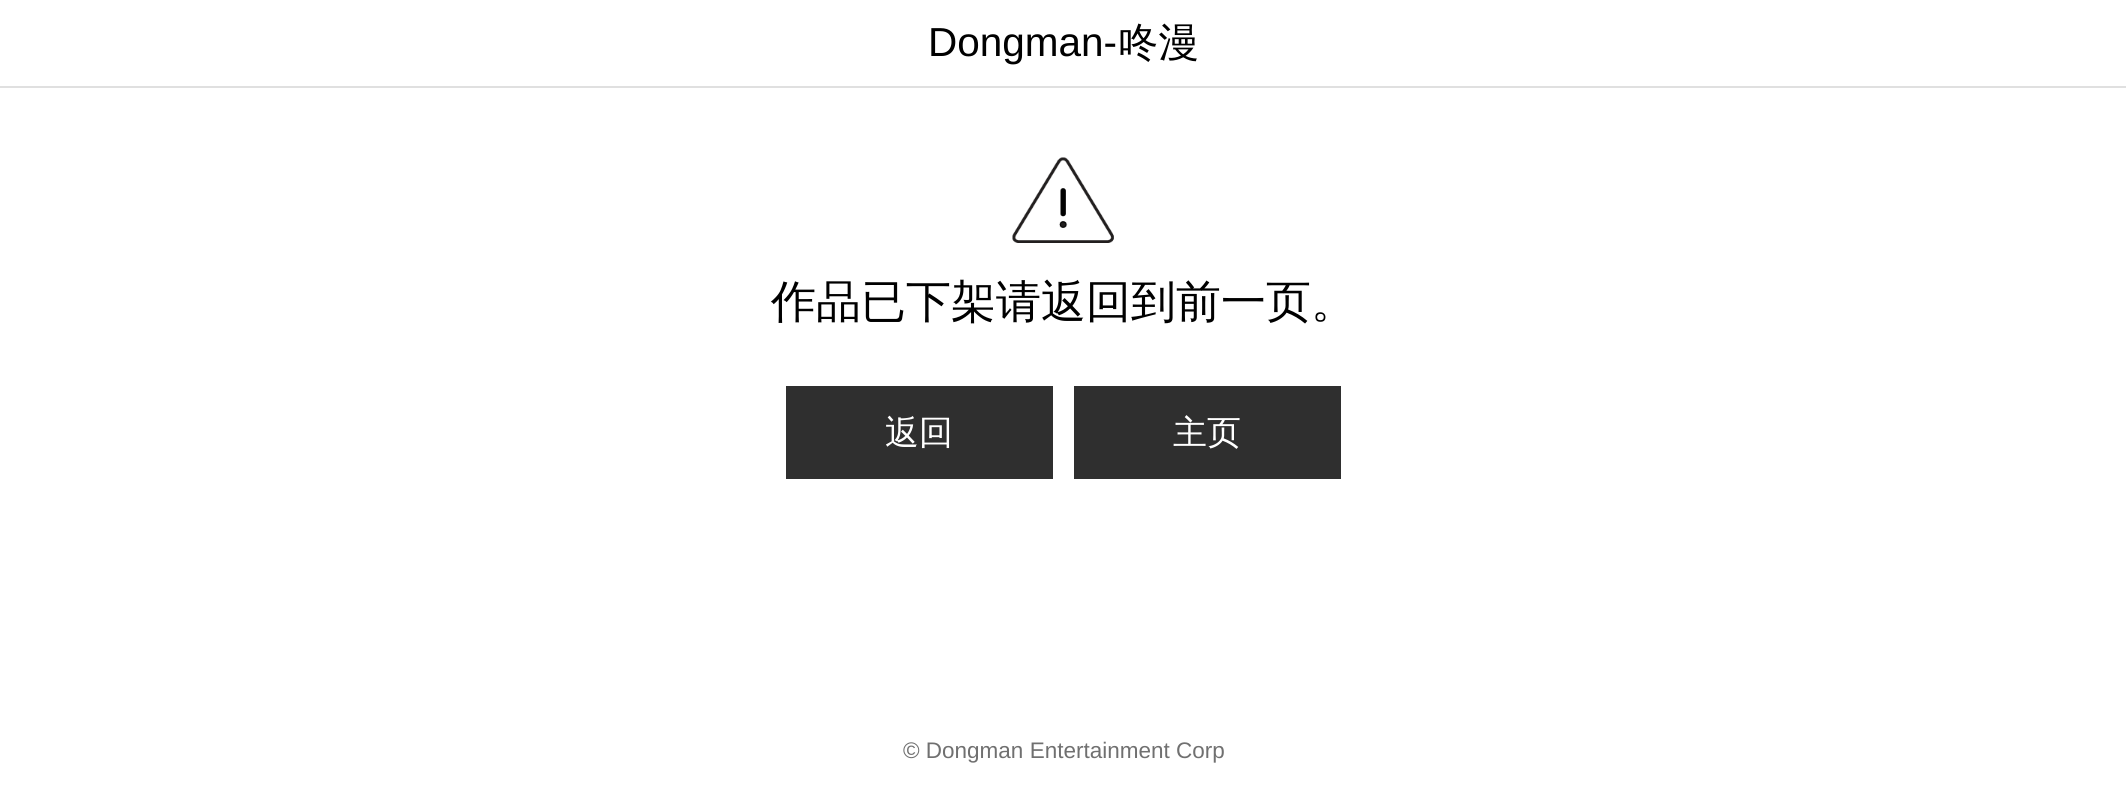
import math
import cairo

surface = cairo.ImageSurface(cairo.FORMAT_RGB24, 2126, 805)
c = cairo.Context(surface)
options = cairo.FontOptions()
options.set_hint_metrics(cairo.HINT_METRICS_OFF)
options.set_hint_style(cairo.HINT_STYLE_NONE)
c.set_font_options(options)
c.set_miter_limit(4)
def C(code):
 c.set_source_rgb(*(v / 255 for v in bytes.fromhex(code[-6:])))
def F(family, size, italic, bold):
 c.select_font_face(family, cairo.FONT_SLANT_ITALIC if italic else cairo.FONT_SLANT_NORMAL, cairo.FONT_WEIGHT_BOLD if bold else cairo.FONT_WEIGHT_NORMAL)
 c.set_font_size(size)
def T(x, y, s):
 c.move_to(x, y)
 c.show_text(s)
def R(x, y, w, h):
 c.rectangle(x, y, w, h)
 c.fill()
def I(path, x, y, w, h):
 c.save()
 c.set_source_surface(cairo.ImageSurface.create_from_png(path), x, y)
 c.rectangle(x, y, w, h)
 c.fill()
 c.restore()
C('ffffff')
c.paint()
C('e0e0e0')
R(0,86,2126,2)
F('Liberation Sans',40.5,0,0)
C('000000')
T(928,56,'Dongman-')
F('WenQuanYi Zen Hei Medium',40.5,0,0)
T(1118,56,'咚漫')
I('1.png',1012,157,102,86)
F('WenQuanYi Zen Hei Medium',45,0,0)
T(771,317,'作品已下架请返回到前一页。')
C('2f2f2f')
R(786,386,267,93)
F('WenQuanYi Zen Hei Medium',34,0,0)
C('ffffff')
T(885,444,'返回')
C('2f2f2f')
R(1074,386,267,93)
C('ffffff')
T(1173,444,'主页')
F('Liberation Sans',22.5,0,0)
C('707070')
T(903,758,'© Dongman Entertainment Corp')
surface.write_to_png('o.png')
